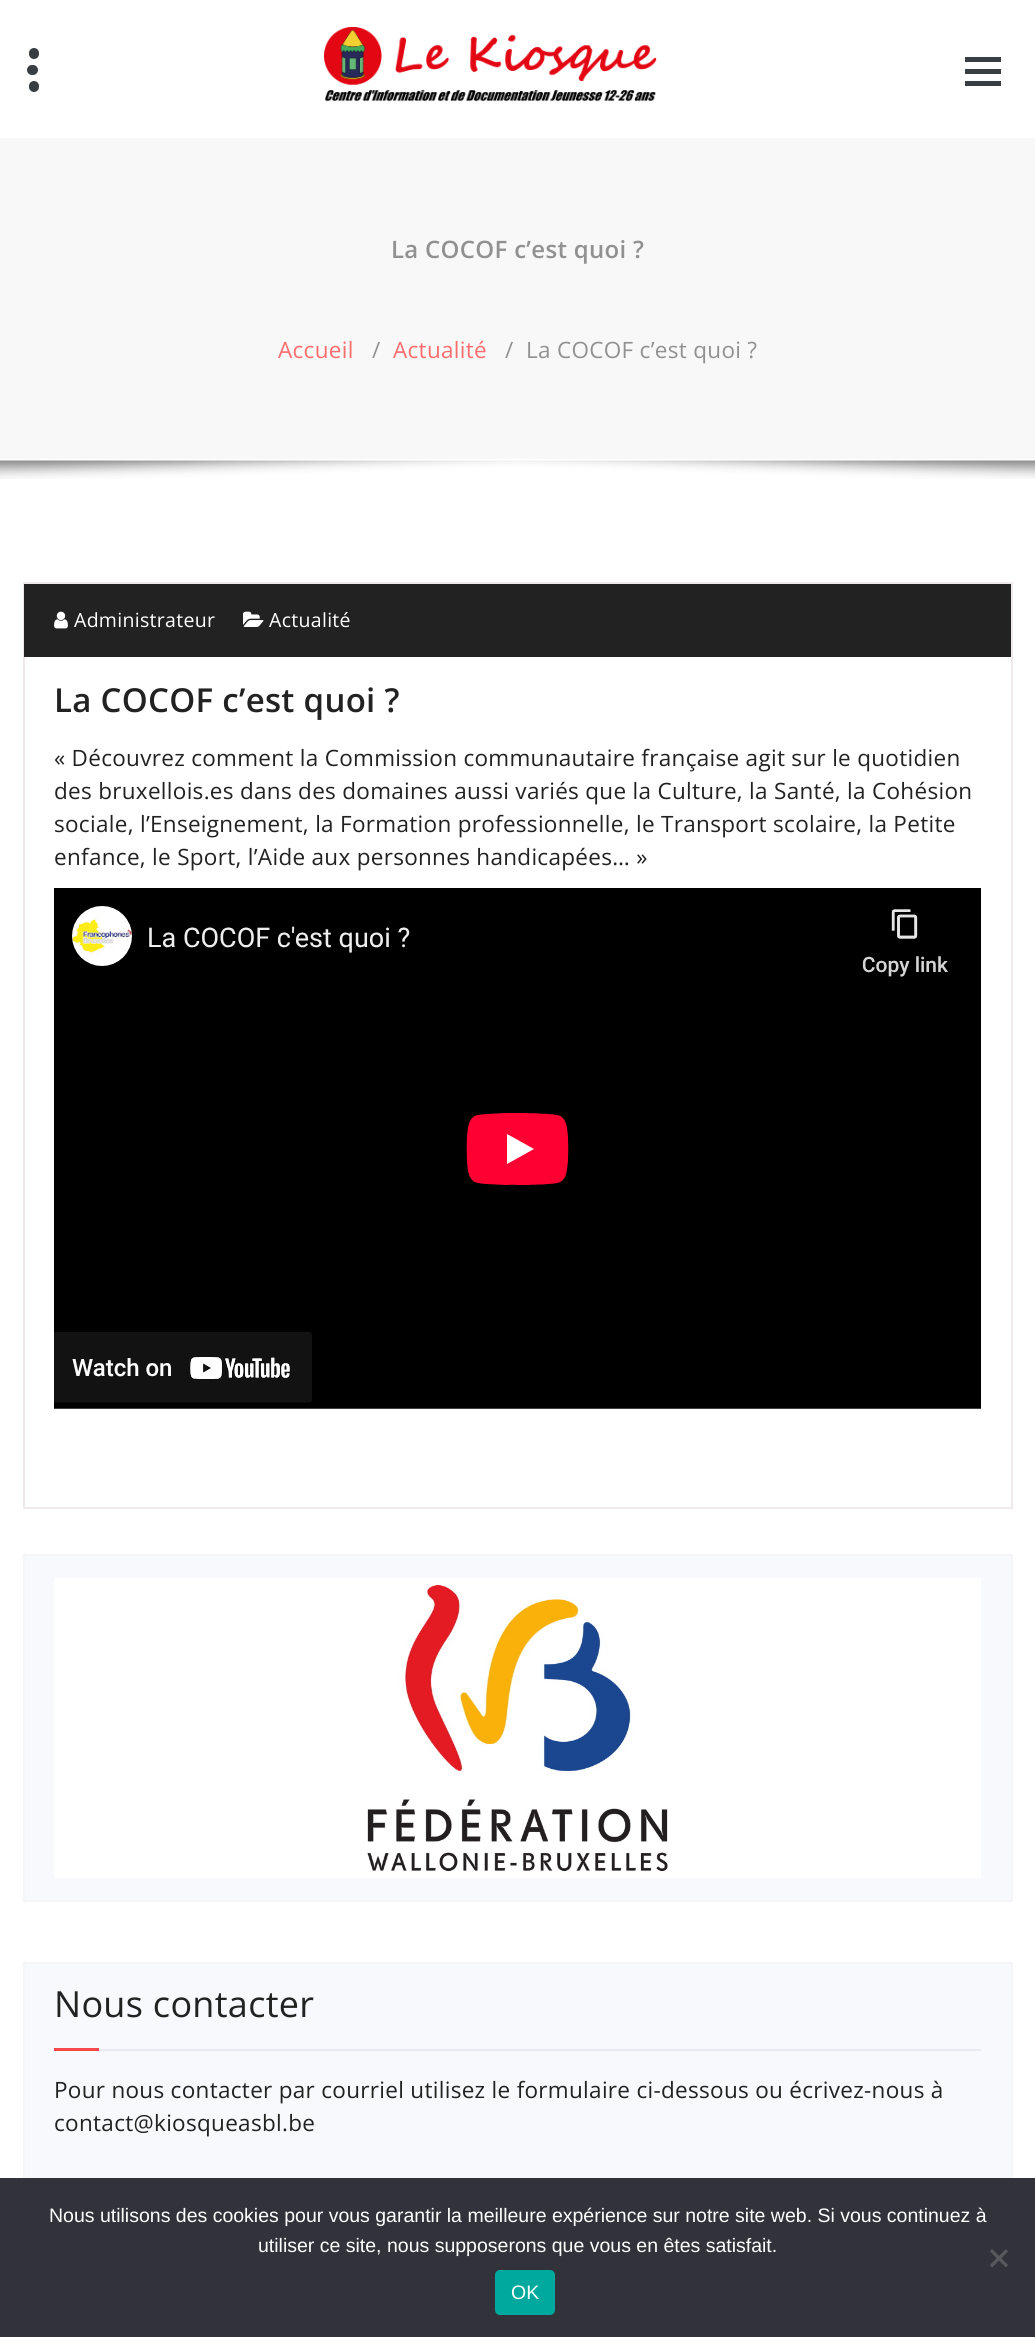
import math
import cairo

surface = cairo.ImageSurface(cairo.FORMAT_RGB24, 1035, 2337)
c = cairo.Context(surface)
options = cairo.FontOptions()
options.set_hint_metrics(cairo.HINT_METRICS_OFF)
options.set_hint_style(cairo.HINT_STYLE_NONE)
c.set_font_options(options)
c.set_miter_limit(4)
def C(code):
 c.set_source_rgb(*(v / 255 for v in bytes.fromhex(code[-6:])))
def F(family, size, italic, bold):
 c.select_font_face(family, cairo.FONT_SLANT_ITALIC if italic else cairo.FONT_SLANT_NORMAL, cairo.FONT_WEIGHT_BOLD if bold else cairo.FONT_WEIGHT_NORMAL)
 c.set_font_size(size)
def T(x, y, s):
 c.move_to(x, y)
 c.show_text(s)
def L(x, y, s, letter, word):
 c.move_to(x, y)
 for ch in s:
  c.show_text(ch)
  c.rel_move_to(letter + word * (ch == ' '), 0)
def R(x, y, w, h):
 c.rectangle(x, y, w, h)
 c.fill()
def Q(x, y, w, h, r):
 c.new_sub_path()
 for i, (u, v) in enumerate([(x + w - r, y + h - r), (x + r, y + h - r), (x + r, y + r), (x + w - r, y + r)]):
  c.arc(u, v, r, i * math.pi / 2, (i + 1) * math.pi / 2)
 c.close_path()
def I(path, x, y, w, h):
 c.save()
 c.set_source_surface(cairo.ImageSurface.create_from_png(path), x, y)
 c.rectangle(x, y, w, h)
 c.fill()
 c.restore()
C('ffffff')
c.paint()
C('383e41')
Q(27,65,11,10,5)
c.fill()
Q(29,48,10,11,5)
c.fill()
Q(29,81,10,11,5)
c.fill()
I('1.png',324,27,333,75)
R(965,57,36,5)
R(965,69,36,5)
R(965,81,36,5)
C('f8f8f8')
R(0,138,1035,321)
F('Open Sans SemiBold',24,0,0)
C('919191')
L(391,258,'La COCOF c’est quoi ?',.3,0)
F('Open Sans',22.5,0,0)
C('fc6e6e')
L(278,358,'Accueil',.3,0)
C('919191')
L(372,358,'/',.3,0)
C('fc6e6e')
L(393,358,'Actualité',.3,0)
C('919191')
L(505,358,'/',.3,0)
L(526,358,'La COCOF c’est quoi ?',.3,0)
I('2.png',0,460,1035,19)
c.rectangle(24,583,988,925)
C('efe9e9')
c.stroke()
C('222222')
R(24,584,987,73)
I('3.png',54,611,14,18)
F('Open Sans',19.5,0,0)
C('ffffff')
L(74,627,'Administrateur',.3,0)
I('4.png',243,611,21,16)
L(269,627,'Actualité',.3,0)
F('Open Sans SemiBold',33,0,0)
C('222222')
L(54,712,'La COCOF c’est quoi ?',.3,0)
F('Open Sans',22.5,0,0)
L(54,766,'« Découvrez comment la Commission communautaire française agit sur le quotidien',.3,0)
L(54,799,'des bruxellois.es dans des domaines aussi variés que la Culture, la Santé, la Cohésion',.3,0)
L(54,832,'sociale, l’Enseignement, la Formation professionnelle, le Transport scolaire, la Petite',.3,0)
L(54,865,'enfance, le Sport, l’Aide aux personnes handicapées… »',.3,0)
I('5.png',54,888,927,521)
C('f7f9fc')
c.rectangle(24,1555,988,346)
c.fill_preserve()
C('f6f6f6')
c.stroke()
C('ffffff')
R(54,1578,927,300)
I('6.png',367,1584,301,287)
C('f7f9fc')
R(25,1964,986,214)
c.rectangle(24,1963,988,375)
C('f6f6f6')
c.stroke()
C('e7eaf1')
R(99,2049,882,2)
F('Open Sans',36,0,0)
C('222222')
L(54,2017,'Nous contacter',.3,0)
C('fb4848')
R(54,2048,45,3)
F('Open Sans',22.5,0,0)
C('222222')
L(54,2098,'Pour nous contacter par courriel utilisez le formulaire ci-dessous ou écrivez-nous à',.3,0)
L(54,2131,'contact@kiosqueasbl.be',.3,0)
C('32323a')
R(0,2178,1035,159)
F('Liberation Sans',19.5,0,0)
C('ffffff')
T(49,2222,'Nous utilisons des cookies pour vous garantir la meilleure expérience sur notre site web. Si vous continuez à')
T(258,2252,'utiliser ce site, nous supposerons que vous en êtes satisfait.')
C('59595d')
c.new_path()
c.move_to(1006,2249)
c.line_to(1008,2251.5)
c.line_to(992,2267.5)
c.line_to(990,2265)
c.close_path()
c.fill()
c.new_path()
c.move_to(990,2251.5)
c.line_to(992,2249)
c.line_to(1008,2265)
c.line_to(1006,2267.5)
c.close_path()
c.fill()
C('00a99d')
Q(495,2270,60,45,5)
c.fill()
C('ffffff')
T(511,2299,'OK')
surface.write_to_png('o.png')
